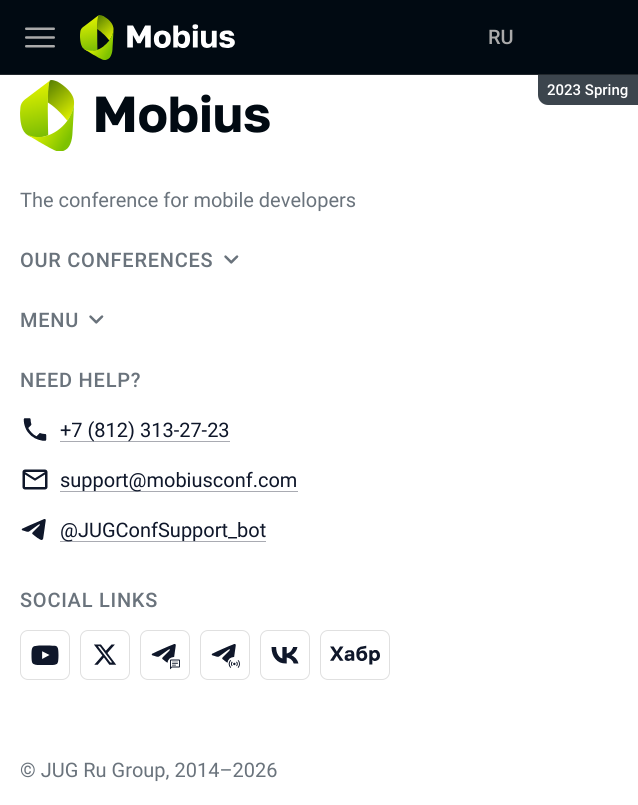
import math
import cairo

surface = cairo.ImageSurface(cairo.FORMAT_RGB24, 638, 805)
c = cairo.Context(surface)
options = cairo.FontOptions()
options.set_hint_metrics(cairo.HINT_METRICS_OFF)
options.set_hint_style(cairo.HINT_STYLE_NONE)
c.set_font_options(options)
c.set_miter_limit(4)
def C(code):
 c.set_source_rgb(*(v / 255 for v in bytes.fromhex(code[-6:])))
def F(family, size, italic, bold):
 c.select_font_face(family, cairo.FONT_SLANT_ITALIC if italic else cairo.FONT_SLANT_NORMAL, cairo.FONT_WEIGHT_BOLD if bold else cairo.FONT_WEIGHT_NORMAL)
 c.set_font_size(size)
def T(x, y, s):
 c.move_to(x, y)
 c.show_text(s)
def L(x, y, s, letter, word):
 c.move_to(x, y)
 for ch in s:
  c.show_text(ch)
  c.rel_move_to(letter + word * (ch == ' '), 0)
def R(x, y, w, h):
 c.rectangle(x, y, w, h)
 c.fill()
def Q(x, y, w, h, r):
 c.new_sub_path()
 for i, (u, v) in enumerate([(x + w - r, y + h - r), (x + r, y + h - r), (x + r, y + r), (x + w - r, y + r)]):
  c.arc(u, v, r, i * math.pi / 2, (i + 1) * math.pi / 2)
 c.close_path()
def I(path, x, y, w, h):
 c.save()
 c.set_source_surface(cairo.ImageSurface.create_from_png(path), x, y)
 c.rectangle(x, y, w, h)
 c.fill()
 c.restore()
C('ffffff')
c.paint()
C('010a12')
R(0,0,638,74)
F('Roboto Medium',20,0,0)
C('aaaaaa')
T(488,44,'RU')
I('1.png',25,27,30,21)
I('2.png',80,15,155,45)
C('3c454d')
c.new_path()
c.move_to(538,75)
c.line_to(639,75)
c.line_to(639,105)
c.line_to(548,105)
c.curve_to(542.5,105,538,100.5,538,95)
c.close_path()
c.fill()
F('Roboto Medium',15,0,0)
C('ffffff')
T(547,95,'2023 Spring')
C('22282d')
R(0,74,638,1)
I('3.png',20,80,250,71)
F('Roboto',20,0,0)
C('6a737c')
T(20,207,'The conference for mobile developers')
F('Roboto Medium',20,0,0)
L(20,267,'OUR CONFERENCES',.75,0)
I('4.png',224,255,15,9)
L(20,327,'MENU',.75,0)
I('4.png',89,315,15,9)
L(20,387,'NEED HELP?',.75,0)
I('5.png',23,418,24,23)
C('a9abb2')
R(60,441,170,1)
F('Roboto',20,0,0)
C('0f172a')
T(60,437,'+7 (812) 313-27-23')
I('6.png',22,469,26,21)
C('a9abb2')
R(60,491,238,1)
C('0f172a')
T(60,487,'support@mobiusconf.com')
I('7.png',21,519,25,21)
C('a9abb2')
R(60,541,206,1)
C('0f172a')
T(60,537,'@JUGConfSupport_bot')
F('Roboto Medium',20,0,0)
C('6a737c')
L(20,607,'SOCIAL LINKS',.75,0)
Q(20.5,630.5,49,49,7.5)
C('e0e0e0')
c.set_line_width(1)
c.stroke()
I('8.png',31,645,28,20)
Q(80.5,630.5,49,49,7.5)
c.stroke()
I('9.png',94,644,23,21)
Q(140.5,630.5,49,49,7.5)
c.stroke()
I('10.png',151,644,29,26)
Q(200.5,630.5,49,49,7.5)
c.stroke()
I('11.png',211,644,29,24)
Q(260.5,630.5,49,49,7.5)
c.stroke()
I('12.png',271,647,28,17)
Q(320.5,630.5,69,49,7.5)
c.stroke()
I('13.png',330,645,50,20)
F('Roboto',20,0,0)
C('6a737c')
T(20,777,'© JUG Ru Group, 2014–2026')
surface.write_to_png('o.png')
